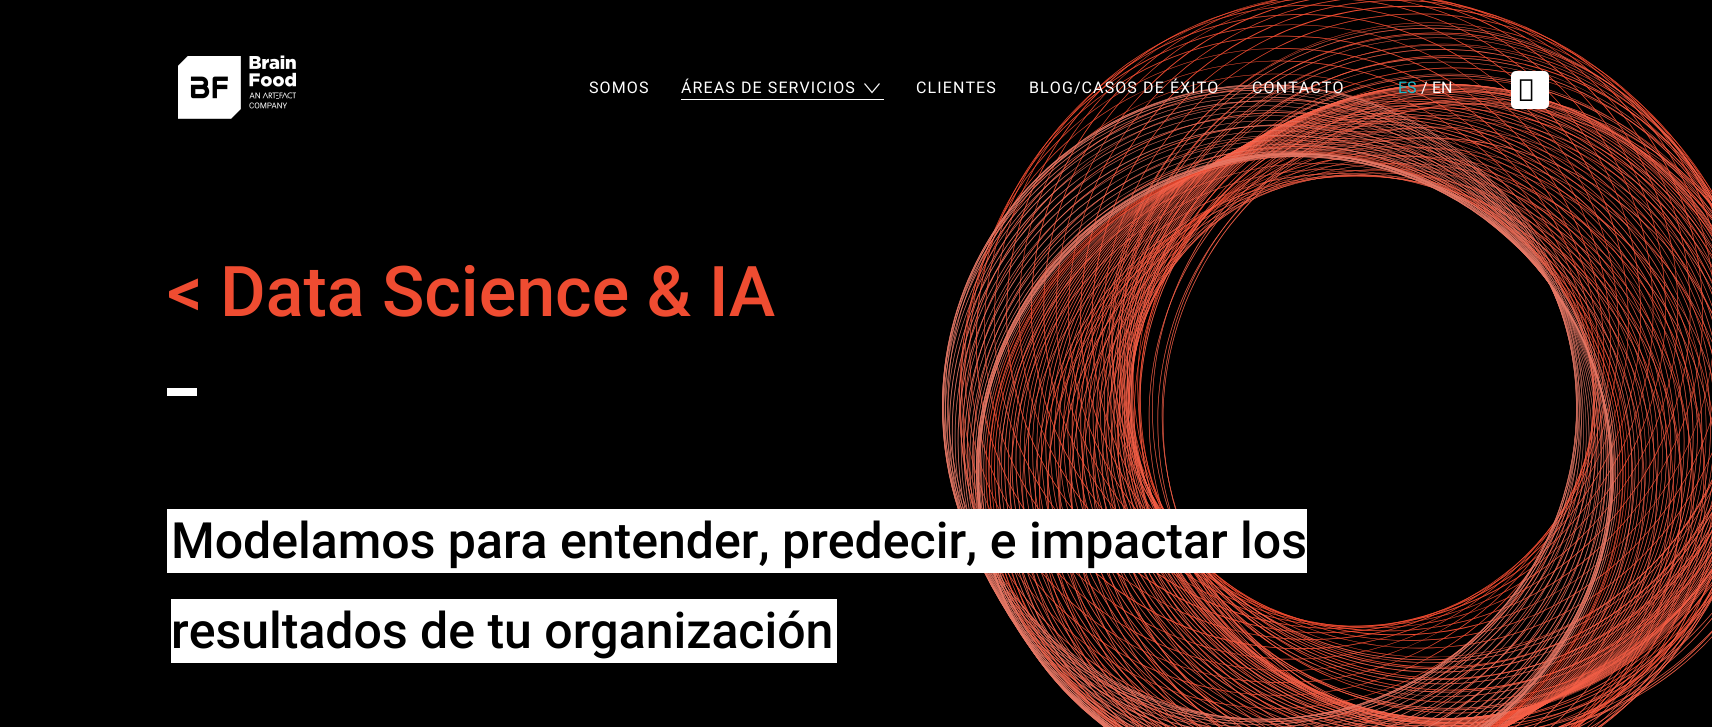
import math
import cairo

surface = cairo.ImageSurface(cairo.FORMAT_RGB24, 1712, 727)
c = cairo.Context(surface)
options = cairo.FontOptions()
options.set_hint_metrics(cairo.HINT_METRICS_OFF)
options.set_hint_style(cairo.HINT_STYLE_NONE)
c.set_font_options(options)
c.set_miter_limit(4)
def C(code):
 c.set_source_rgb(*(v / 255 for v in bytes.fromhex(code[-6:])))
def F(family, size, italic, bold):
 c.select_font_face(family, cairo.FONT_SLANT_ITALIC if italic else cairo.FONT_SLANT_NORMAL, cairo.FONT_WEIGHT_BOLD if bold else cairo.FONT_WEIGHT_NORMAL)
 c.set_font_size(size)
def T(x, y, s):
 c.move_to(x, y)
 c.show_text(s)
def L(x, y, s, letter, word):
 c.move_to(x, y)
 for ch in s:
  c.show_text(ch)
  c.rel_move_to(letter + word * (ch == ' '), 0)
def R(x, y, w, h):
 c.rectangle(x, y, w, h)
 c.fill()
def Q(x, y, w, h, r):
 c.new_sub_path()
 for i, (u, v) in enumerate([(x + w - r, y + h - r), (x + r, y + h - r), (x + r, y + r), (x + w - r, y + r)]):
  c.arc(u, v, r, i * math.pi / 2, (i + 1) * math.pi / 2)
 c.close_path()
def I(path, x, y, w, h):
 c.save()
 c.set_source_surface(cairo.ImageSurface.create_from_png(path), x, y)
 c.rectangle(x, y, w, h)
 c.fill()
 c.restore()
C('000000')
c.paint()
I('1.png',178,55,118,64)
F('Roboto',16,0,0)
C('ffffff')
L(589,93,'SOMOS',1.1,0)
L(681,93,'ÁREAS DE SERVICIOS',1.1,0)
c.new_path()
c.move_to(879.5,83.5)
c.line_to(872,92.5)
c.line_to(864.5,83.5)
c.set_line_width(1.2)
c.stroke()
R(681,99,203,1)
I('3.png',942,0,770,727)
L(916,93,'CLIENTES',1.1,0)
L(1029,93,'BLOG/CASOS DE ÉXITO',1.1,0)
L(1252,93,'CONTACTO',1.1,0)
C('1abacb')
T(1398,93,'ES')
C('ffffff')
T(1421,93,'/')
T(1432,93,'EN')
Q(1511,71,38,38,5)
c.fill()
I('2.png',1519,79,14,22)
F('Roboto Medium',70,0,0)
C('ef4c31')
T(167,316,'<')
T(220,316,'Data Science & IA')
C('ffffff')
R(167,388,30,8)
R(167,509,1140,64)
F('Roboto Medium',50,0,0)
C('000000')
T(171,558,'Modelamos para entender, predecir, e impactar los')
C('ffffff')
R(171,599,666,64)
C('000000')
T(171,648,'resultados de tu organización')
surface.write_to_png('o.png')
